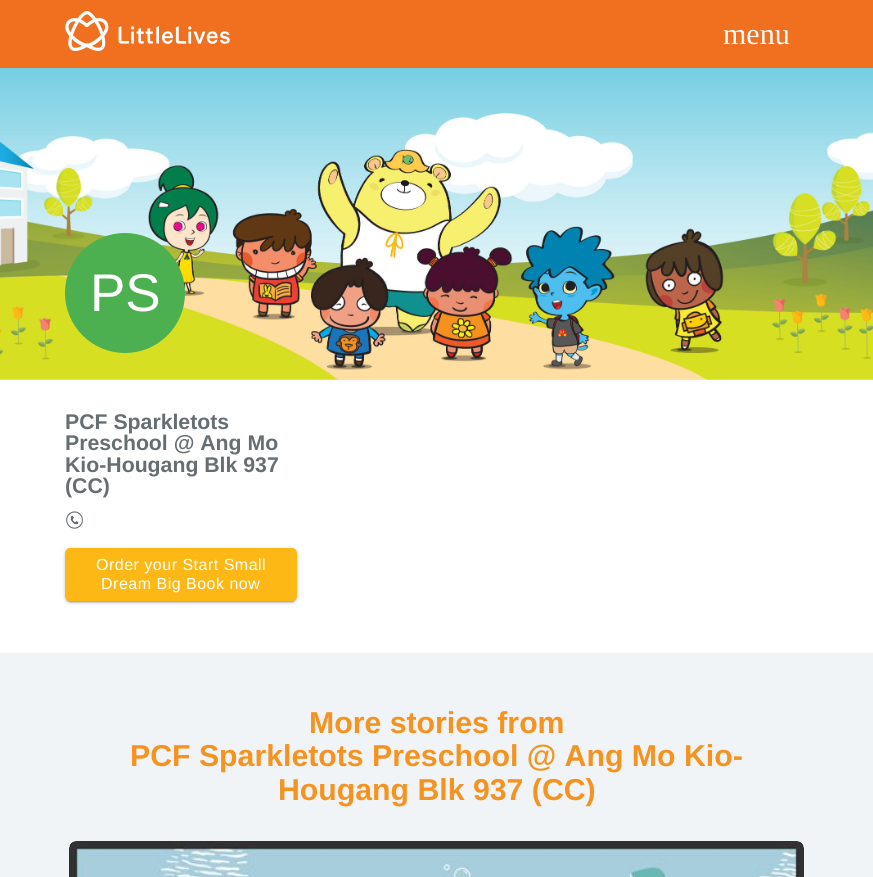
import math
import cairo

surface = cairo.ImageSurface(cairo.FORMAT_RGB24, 873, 877)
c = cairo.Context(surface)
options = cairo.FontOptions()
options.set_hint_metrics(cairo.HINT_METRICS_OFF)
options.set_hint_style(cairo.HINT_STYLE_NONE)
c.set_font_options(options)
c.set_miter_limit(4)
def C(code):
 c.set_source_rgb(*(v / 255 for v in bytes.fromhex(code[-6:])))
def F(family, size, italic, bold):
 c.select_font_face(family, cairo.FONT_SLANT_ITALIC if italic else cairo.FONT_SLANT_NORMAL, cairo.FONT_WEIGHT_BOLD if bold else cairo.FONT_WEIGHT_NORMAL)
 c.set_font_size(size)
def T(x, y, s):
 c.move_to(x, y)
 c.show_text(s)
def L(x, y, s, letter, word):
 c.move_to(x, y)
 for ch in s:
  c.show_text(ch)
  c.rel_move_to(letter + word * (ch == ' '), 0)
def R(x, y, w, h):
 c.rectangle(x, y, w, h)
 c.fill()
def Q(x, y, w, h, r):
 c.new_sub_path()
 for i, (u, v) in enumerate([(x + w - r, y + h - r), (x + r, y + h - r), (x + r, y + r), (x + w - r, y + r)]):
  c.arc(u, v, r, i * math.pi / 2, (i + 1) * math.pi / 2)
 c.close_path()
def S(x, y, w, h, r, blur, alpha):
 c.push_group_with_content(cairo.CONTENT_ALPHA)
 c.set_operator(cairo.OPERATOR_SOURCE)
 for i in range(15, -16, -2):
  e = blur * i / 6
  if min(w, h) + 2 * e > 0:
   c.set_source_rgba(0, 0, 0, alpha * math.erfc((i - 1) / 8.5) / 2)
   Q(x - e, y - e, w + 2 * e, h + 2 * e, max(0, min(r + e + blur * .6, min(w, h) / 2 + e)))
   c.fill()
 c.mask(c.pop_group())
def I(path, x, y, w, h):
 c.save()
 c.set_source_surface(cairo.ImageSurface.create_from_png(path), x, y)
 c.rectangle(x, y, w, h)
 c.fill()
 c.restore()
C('ffffff')
c.paint()
C('f17020')
R(0,0,873,68)
I('1.png',65,11,165,40)
F('Liberation Serif',30,0,0)
C('ffffff')
T(723,44,'menu')
I('2.png',0,68,873,312)
C('4caf50')
c.arc(125,293,60,0,2 * math.pi)
c.fill()
F('Liberation Sans',53,0,0)
C('ffffff')
T(90,311,'PS')
F('Liberation Sans',21.25,0,1)
C('666e72')
T(65,429,'PCF Sparkletots')
T(65,450,'Preschool @ Ang Mo')
T(65,472,'Kio-Hougang Blk 937')
T(65,493,'(CC)')
I('3.png',66,511,17,18)
C('000000')
S(67,553,228,49,3,.5,.2)
S(65,549,232,53,5,2.5,.12)
S(65,550,232,53,5,1,.14)
C('fdb816')
Q(65,548,232,53,5)
c.fill()
F('Liberation Sans',16,0,0)
C('ffffff')
L(96,570,'Order your Start Small',.5,0)
L(101,589,'Dream Big Book now',.5,0)
C('f1f4f6')
R(0,653,873,224)
F('Liberation Sans',30.25,0,1)
C('f59321')
T(309,733,'More stories from')
T(130,766,'PCF Sparkletots Preschool @ Ang Mo Kio-')
T(278,800,'Hougang Blk 937 (CC)')
C('ffffff')
Q(69,841,735,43,7)
c.fill()
I('4.png',69,841,735,36)
surface.write_to_png('o.png')
